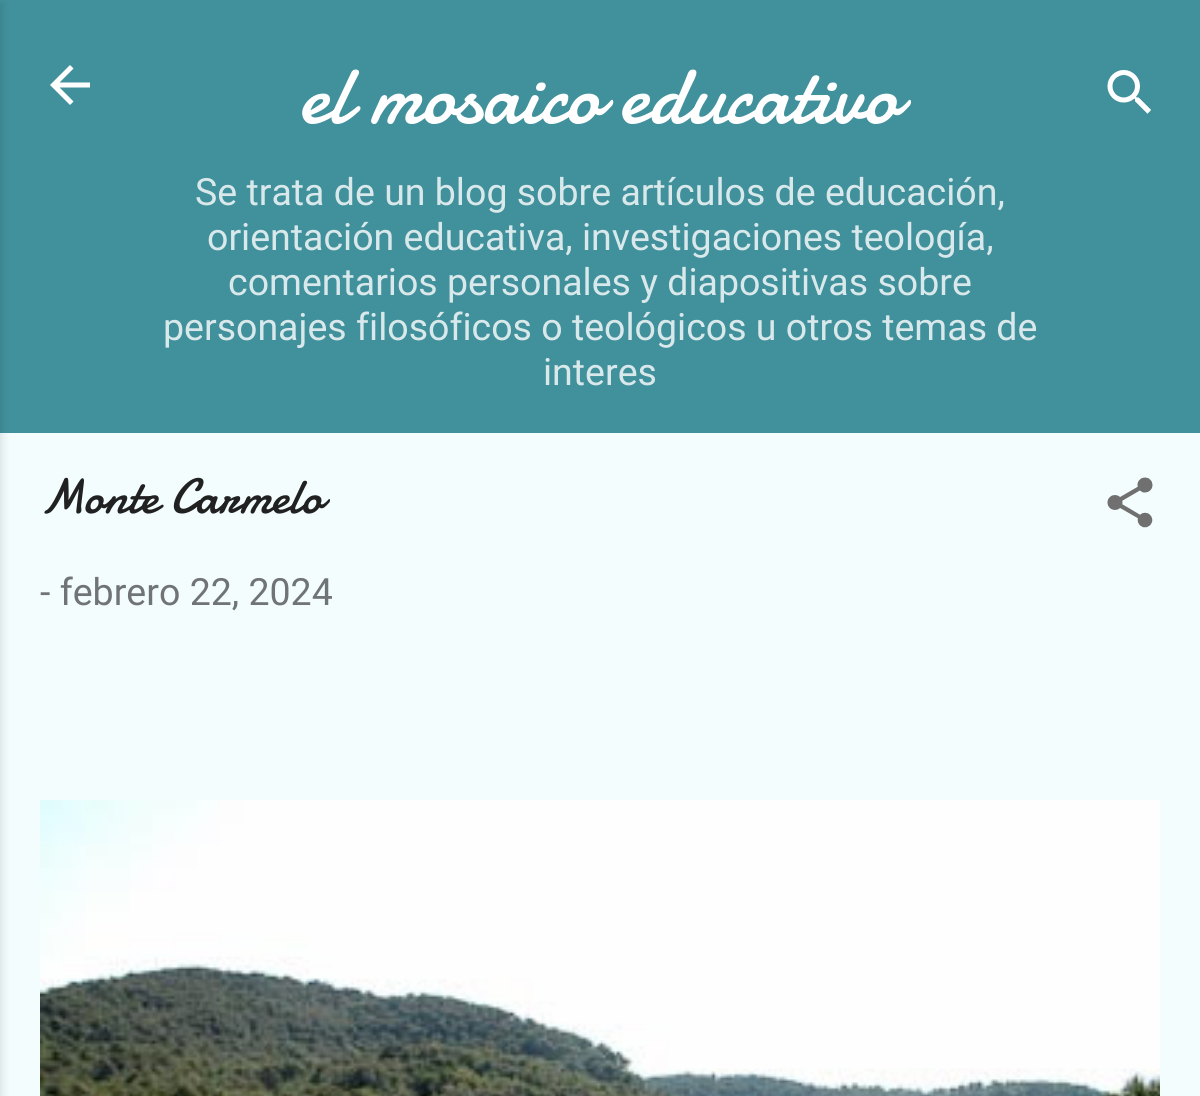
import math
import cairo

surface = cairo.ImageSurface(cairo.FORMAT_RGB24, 1200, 1096)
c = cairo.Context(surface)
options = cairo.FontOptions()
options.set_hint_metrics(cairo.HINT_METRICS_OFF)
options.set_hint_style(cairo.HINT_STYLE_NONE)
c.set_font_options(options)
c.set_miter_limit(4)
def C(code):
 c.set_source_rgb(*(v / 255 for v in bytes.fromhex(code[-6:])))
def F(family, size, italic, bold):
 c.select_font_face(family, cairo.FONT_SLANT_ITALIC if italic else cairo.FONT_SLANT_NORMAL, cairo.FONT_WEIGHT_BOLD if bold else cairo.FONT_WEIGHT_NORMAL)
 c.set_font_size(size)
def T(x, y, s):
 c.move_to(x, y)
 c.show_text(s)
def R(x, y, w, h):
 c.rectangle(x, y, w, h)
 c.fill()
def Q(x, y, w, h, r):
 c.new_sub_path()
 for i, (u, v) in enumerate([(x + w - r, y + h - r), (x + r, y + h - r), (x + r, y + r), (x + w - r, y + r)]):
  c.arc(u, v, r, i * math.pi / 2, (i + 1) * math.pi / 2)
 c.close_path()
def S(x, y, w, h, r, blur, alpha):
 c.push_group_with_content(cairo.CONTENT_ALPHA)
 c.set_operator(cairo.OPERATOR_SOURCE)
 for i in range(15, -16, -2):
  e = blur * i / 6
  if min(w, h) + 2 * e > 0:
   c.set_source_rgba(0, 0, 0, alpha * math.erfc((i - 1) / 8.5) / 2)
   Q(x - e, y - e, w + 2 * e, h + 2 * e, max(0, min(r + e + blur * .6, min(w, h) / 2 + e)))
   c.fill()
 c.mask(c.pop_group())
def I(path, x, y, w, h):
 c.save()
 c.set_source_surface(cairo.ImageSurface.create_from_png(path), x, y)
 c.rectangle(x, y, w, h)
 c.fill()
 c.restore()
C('41919c')
c.paint()
C('f3fdfe')
R(0,433,1200,663)
C('000000')
S(-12,3,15,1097,0,4,.1)
I('1.png',50,65,40,40)
F('Damion',82.75,0,0)
C('ffffff')
T(301,123,'el mosaico educativo')
F('Roboto',37.5,0,0)
C('d9e9eb')
T(195,205,'Se trata de un blog sobre artículos de educación,')
T(207,250,'orientación educativa, investigaciones teología,')
T(228,295,'comentarios personales y diapositivas sobre')
T(163,340,'personajes filosóficos o teológicos u otros temas de')
T(543,385,'interes')
I('2.png',1107,70,44,44)
F('Damion',50,0,0)
C('212121')
T(40,513,'Monte Carmelo')
I('3.png',1107,477,46,51)
F('Roboto',37.5,0,0)
C('707475')
T(40,605,'- febrero 22, 2024')
I('4.png',40,800,1120,296)
surface.write_to_png('o.png')
